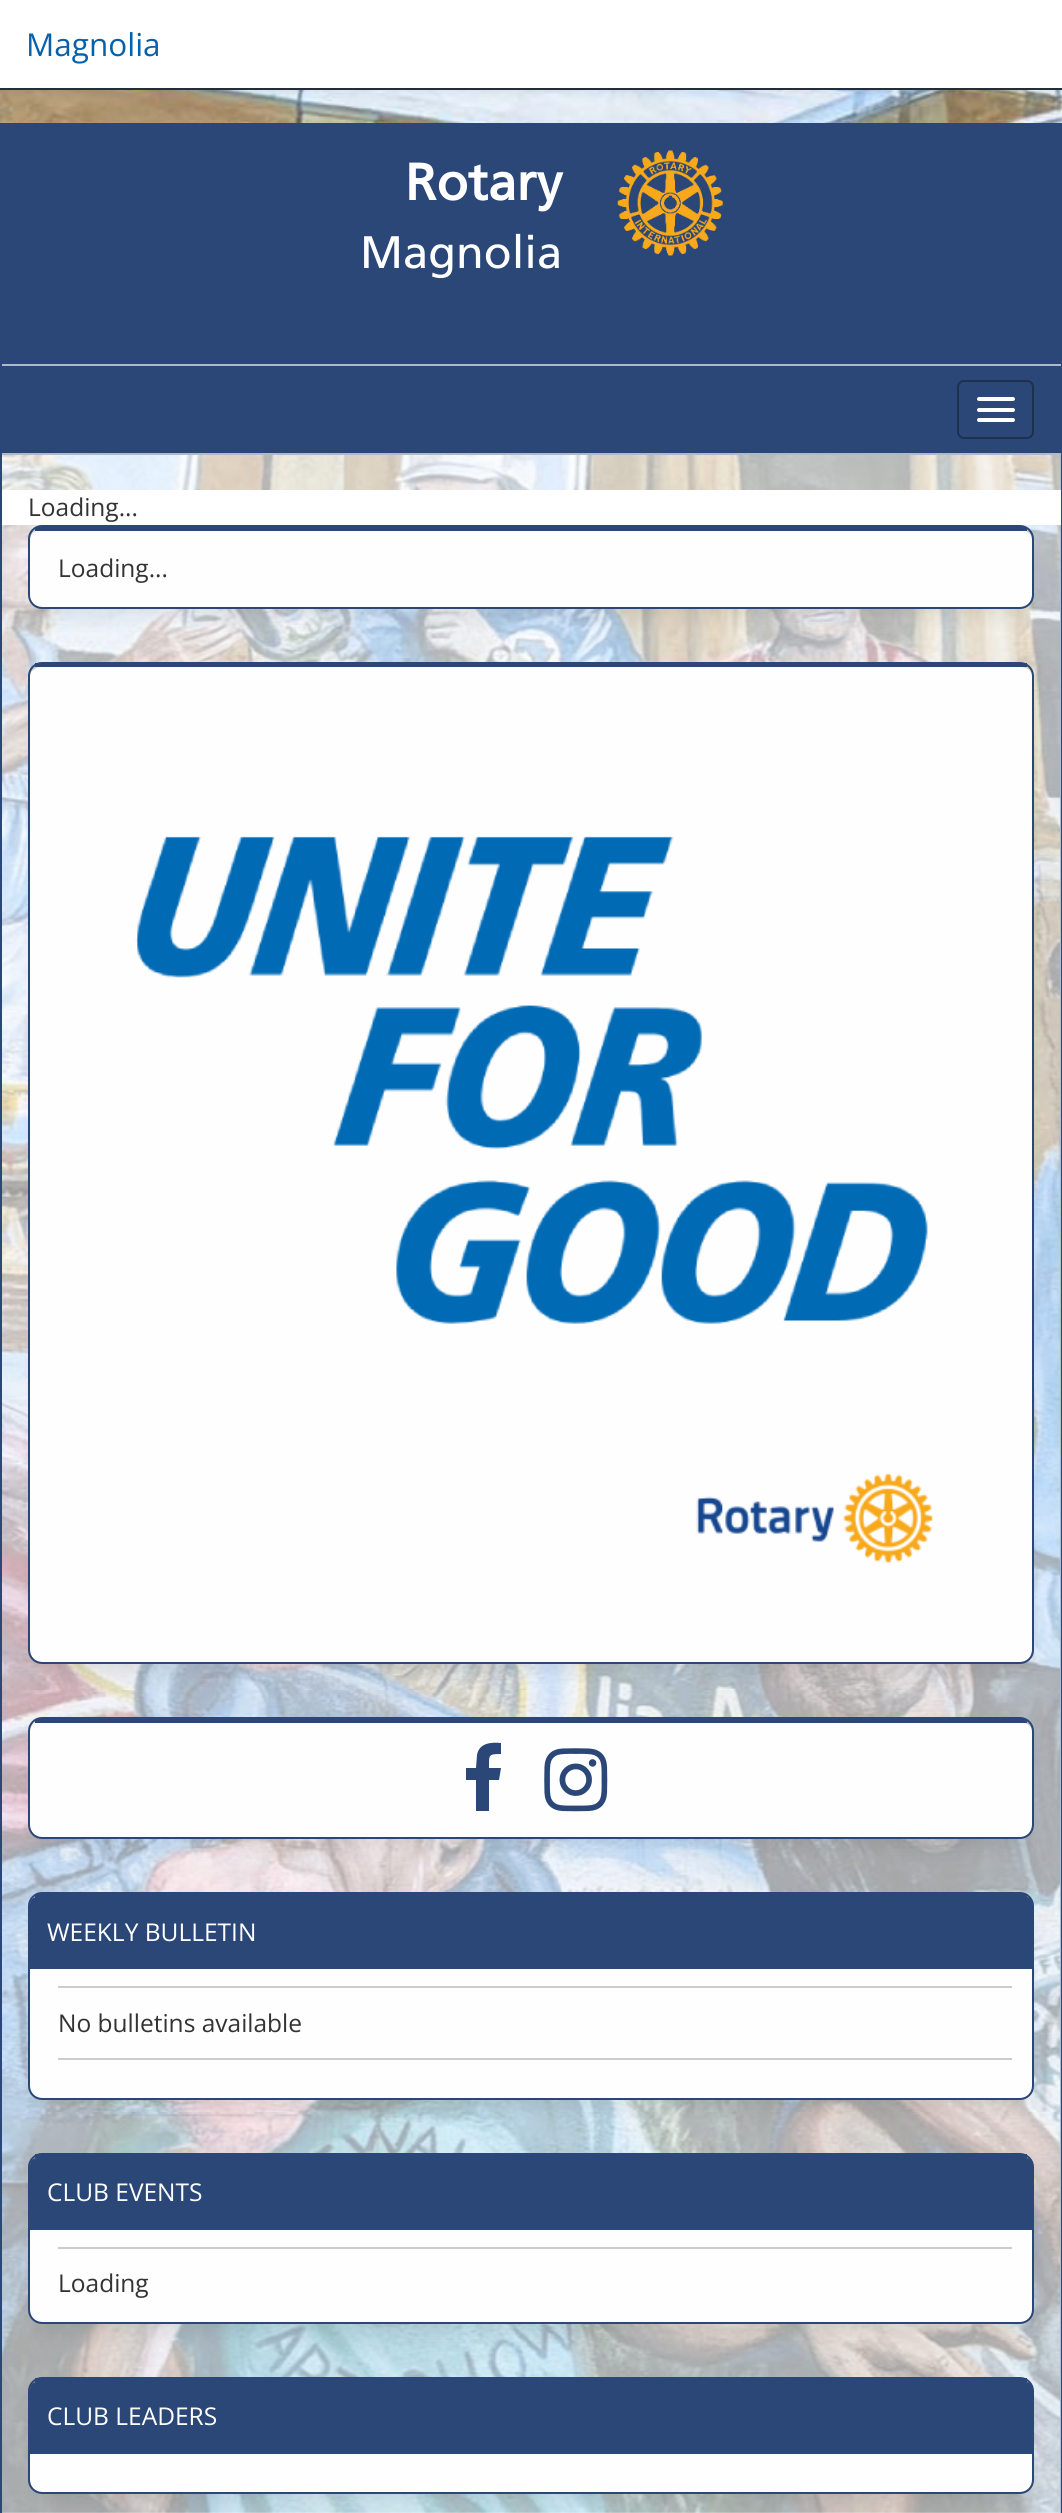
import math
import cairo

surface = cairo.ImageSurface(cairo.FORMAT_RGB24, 1062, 2513)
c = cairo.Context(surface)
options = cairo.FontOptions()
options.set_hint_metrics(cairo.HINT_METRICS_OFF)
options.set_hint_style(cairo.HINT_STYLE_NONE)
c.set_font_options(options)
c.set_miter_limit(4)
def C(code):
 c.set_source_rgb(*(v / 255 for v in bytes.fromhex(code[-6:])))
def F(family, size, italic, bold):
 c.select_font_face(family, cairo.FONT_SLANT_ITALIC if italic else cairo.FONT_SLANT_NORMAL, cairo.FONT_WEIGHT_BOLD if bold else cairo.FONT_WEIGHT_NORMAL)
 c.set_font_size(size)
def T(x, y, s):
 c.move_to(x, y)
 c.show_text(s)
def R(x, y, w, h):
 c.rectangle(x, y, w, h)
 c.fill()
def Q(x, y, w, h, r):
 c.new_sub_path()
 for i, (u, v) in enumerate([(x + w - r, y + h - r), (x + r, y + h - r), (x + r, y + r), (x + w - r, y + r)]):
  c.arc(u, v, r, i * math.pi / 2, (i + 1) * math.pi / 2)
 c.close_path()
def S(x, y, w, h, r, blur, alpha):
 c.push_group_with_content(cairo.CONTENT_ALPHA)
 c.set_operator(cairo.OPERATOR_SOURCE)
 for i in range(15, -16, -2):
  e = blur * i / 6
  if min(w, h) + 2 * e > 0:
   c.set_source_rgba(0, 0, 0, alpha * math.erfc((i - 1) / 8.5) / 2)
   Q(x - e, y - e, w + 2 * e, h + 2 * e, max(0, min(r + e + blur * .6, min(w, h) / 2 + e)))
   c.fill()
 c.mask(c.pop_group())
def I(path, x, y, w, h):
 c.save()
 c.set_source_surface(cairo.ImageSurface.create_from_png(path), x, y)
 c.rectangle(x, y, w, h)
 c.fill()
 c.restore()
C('ffffff')
c.paint()
I('1.png',0,90,1062,2423)
C('000000')
S(0,2,1062,89,0,4.5,.07)
C('ffffff')
R(0,0,1062,88)
C('242e38')
R(0,88,1062,2)
F('Open Sans',31.5,0,0)
C('0761aa')
T(26,56,'Magnolia')
c.rectangle(1,124,1060,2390)
C('2a4777')
c.stroke()
R(2,125,1058,239)
F('Frutiger',51.5,0,1)
C('ffffff')
T(405,200,'Rotary')
F('Frutiger',45.5,0,0)
T(360,268,'Magnolia')
I('2.png',617,150,106,106)
C('2a4777')
R(2,366,1058,87)
C('aeb9cb')
R(2,364,1059,2)
R(2,453,1059,2)
Q(958,381,75,57,6)
C('1c304f')
c.stroke()
C('ffffff')
Q(977,397,38,4,2)
c.fill()
Q(977,408,38,4,2)
c.fill()
Q(977,418,38,4,2)
c.fill()
c.set_source_rgba(1,1,1,0.62)
R(2,455,1059,2058)
C('ffffff')
R(2,490,1059,35)
F('Open Sans',24.5,0,0)
C('333333')
T(28,516,'Loading...')
C('000000')
S(37,551,989,67,5,9,.08)
C('fefefe')
c.new_path()
c.move_to(42,530)
c.line_to(1020,530)
c.curve_to(1027,530,1032,534,1032,539)
c.line_to(1032,595)
c.curve_to(1032,602,1027,607,1020,607)
c.line_to(42,607)
c.curve_to(35,607,30,602,30,595)
c.line_to(30,539)
c.curve_to(30,534,35,530,42,530)
c.close_path()
c.fill()
Q(29,526,1004,82,13)
C('2a4777')
c.stroke()
R(35,527,992,4)
C('333333')
T(58,577,'Loading...')
C('000000')
S(37,688,989,985,5,9,.08)
C('fefefe')
c.new_path()
c.move_to(42,667)
c.line_to(1020,667)
c.curve_to(1027,667,1032,671,1032,676)
c.line_to(1032,1650)
c.curve_to(1032,1657,1027,1662,1020,1662)
c.line_to(42,1662)
c.curve_to(35,1662,30,1657,30,1650)
c.line_to(30,676)
c.curve_to(30,671,35,667,42,667)
c.close_path()
c.fill()
Q(29,663,1004,1000,13)
C('2a4777')
c.stroke()
R(35,663,992,4)
I('3.png',135,836,798,727)
C('000000')
S(37,1743,989,105,5,9,.08)
C('fefefe')
c.new_path()
c.move_to(42,1722)
c.line_to(1020,1722)
c.curve_to(1027,1722,1032,1726,1032,1731)
c.line_to(1032,1825)
c.curve_to(1032,1832,1027,1838,1020,1838)
c.line_to(42,1838)
c.curve_to(35,1838,30,1832,30,1825)
c.line_to(30,1731)
c.curve_to(30,1726,35,1722,42,1722)
c.close_path()
c.fill()
Q(29,1718,1004,120,13)
C('2a4777')
c.stroke()
R(35,1719,992,4)
c.new_path()
c.move_to(501,1743)
c.line_to(501,1754)
c.curve_to(488,1754,489,1755,489,1768)
c.line_to(501,1768)
c.line_to(499,1780)
c.line_to(489,1780)
c.line_to(489,1811)
c.line_to(476,1811)
c.line_to(476,1780)
c.line_to(466,1780)
c.line_to(466,1768)
c.line_to(476,1768)
c.line_to(477,1755)
c.curve_to(479,1743,491,1742,501,1743)
c.close_path()
c.fill()
I('4.png',544,1748,64,64)
C('000000')
S(37,1918,989,191,5,9,.08)
C('fefefe')
c.new_path()
c.move_to(42,1897)
c.line_to(1020,1897)
c.curve_to(1027,1897,1032,1901,1032,1906)
c.line_to(1032,2086)
c.curve_to(1032,2093,1027,2098,1020,2098)
c.line_to(42,2098)
c.curve_to(35,2098,30,2093,30,2086)
c.line_to(30,1906)
c.curve_to(30,1901,35,1897,42,1897)
c.close_path()
c.fill()
Q(29,1893,1004,206,13)
C('2a4777')
c.stroke()
R(35,1894,992,4)
c.new_path()
c.move_to(37,1897)
c.line_to(1026,1897)
c.curve_to(1030,1897,1033,1900,1033,1904)
c.line_to(1033,1969)
c.line_to(30,1969)
c.line_to(30,1904)
c.curve_to(30,1900,33,1897,37,1897)
c.close_path()
c.fill()
C('ffffff')
T(47,1941,'WEEKLY BULLETIN')
C('cccccc')
R(58,1986,954,2)
C('333333')
T(58,2032,'No bulletins available')
C('cccccc')
R(58,2058,954,2)
C('000000')
S(37,2179,989,154,5,9,.08)
C('fefefe')
c.new_path()
c.move_to(42,2158)
c.line_to(1020,2158)
c.curve_to(1027,2158,1032,2162,1032,2166)
c.line_to(1032,2310)
c.curve_to(1032,2317,1027,2322,1020,2322)
c.line_to(42,2322)
c.curve_to(35,2322,30,2317,30,2310)
c.line_to(30,2166)
c.curve_to(30,2162,35,2158,42,2158)
c.close_path()
c.fill()
Q(29,2154,1004,169,13)
C('2a4777')
c.stroke()
R(35,2154,992,4)
c.new_path()
c.move_to(37,2158)
c.line_to(1026,2158)
c.curve_to(1030,2158,1033,2161,1033,2165)
c.line_to(1033,2230)
c.line_to(30,2230)
c.line_to(30,2165)
c.curve_to(30,2161,33,2158,37,2158)
c.close_path()
c.fill()
C('ffffff')
T(47,2201,'CLUB EVENTS')
C('cccccc')
R(58,2247,954,2)
C('333333')
T(58,2292,'Loading')
C('000000')
S(37,2403,989,100,5,9,.08)
C('fefefe')
c.new_path()
c.move_to(42,2382)
c.line_to(1020,2382)
c.curve_to(1027,2382,1032,2386,1032,2390)
c.line_to(1032,2480)
c.curve_to(1032,2487,1027,2492,1020,2492)
c.line_to(42,2492)
c.curve_to(35,2492,30,2487,30,2480)
c.line_to(30,2390)
c.curve_to(30,2386,35,2382,42,2382)
c.close_path()
c.fill()
Q(29,2378,1004,115,13)
C('2a4777')
c.stroke()
R(35,2378,992,4)
c.new_path()
c.move_to(37,2382)
c.line_to(1026,2382)
c.curve_to(1030,2382,1033,2385,1033,2389)
c.line_to(1033,2454)
c.line_to(30,2454)
c.line_to(30,2389)
c.curve_to(30,2385,33,2382,37,2382)
c.close_path()
c.fill()
C('ffffff')
T(47,2425,'CLUB LEADERS')
surface.write_to_png('o.png')
